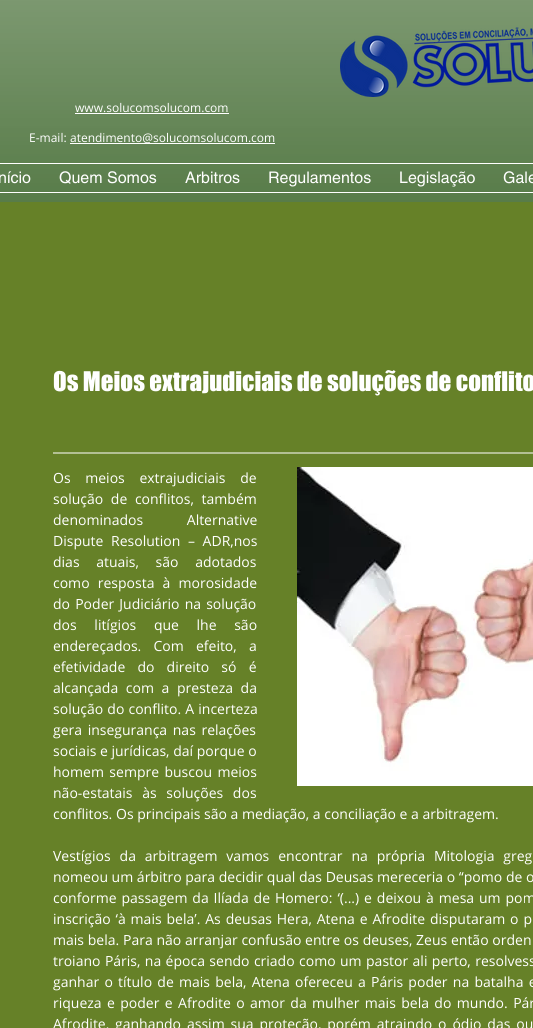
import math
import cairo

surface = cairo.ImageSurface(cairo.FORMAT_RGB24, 533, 1028)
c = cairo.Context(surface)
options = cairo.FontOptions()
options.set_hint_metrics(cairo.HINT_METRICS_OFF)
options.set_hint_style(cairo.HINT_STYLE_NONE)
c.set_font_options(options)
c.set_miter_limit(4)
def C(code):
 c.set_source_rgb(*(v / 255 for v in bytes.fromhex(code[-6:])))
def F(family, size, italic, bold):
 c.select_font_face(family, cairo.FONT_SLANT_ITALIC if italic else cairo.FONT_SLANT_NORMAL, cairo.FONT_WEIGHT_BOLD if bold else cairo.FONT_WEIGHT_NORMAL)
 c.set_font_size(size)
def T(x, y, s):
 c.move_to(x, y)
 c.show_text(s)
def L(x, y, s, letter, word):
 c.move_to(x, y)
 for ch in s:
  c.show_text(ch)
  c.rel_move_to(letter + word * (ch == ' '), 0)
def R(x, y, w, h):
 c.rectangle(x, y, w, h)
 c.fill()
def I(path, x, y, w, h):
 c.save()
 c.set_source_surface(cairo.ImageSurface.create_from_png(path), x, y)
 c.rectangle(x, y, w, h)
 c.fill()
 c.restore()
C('4e743e')
c.paint()
I('1.png',0,0,533,202)
I('2.png',340,27,193,70)
F('Open Sans',12,0,0)
C('ffffff')
T(75,112,'www.solucomsolucom.com')
R(75,113,154,1)
T(29,142,'E-mail:')
R(70,143,205,1)
T(70,142,'atendimento@solucomsolucom.com')
R(0,163,533,1)
R(0,192,533,1)
F('helvetica',16,0,0)
T(-2,183,'nício')
T(59,183,'Quem Somos')
T(185,183,'Arbitros')
T(268,183,'Regulamentos')
T(399,183,'Legislação')
T(503,183,'Gale')
C('668128')
R(0,202,533,826)
F('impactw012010',25,0,0)
C('ffffff')
T(53,391,'Os Meios extrajudiciais de soluções de conflito')
c.new_path()
c.move_to(53,453)
c.line_to(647,453)
c.set_line_width(1)
c.stroke()
I('3.png',297,467,236,319)
F('Open Sans',14,0,0)
L(53,483,'Os meios extrajudiciais de',0,11)
L(53,504,'solução de conflitos, também',0,4)
L(53,525,'denominados Alternative',0,40)
L(53,546,'Dispute Resolution – ADR,nos',0,4)
L(53,567,'dias atuais, são adotados',0,13)
L(53,588,'como resposta à morosidade',0,4.5)
L(53,609,'do Poder Judiciário na solução',0,1.5)
L(53,630,'dos litígios que lhe são',0,14)
L(53,651,'endereçados. Com efeito, a',0,8.5)
L(53,672,'efetividade do direito só é',0,8.5)
L(53,693,'alcançada com a presteza da',0,4)
L(53,714,'solução do conflito. A incerteza',0,.5)
L(53,735,'gera insegurança nas relações',0,2)
T(53,756,'sociais e jurídicas, daí porque o')
L(53,777,'homem sempre buscou meios',0,1.75)
L(53,798,'não-estatais às soluções dos',0,6)
T(53,819,'conflitos. Os principais são a mediação, a conciliação e a arbitragem.')
L(53,861,'Vestígios da arbitragem vamos encontrar na própria Mitologia greg',0,5.25)
T(53,882,'nomeou um árbitro para decidir qual das Deusas mereceria o “pomo de o')
L(53,903,'conforme passagem da Ilíada de Homero: ‘(...) e deixou à mesa um pom',0,1.25)
L(53,924,'inscrição ‘à mais bela’. As deusas Hera, Atena e Afrodite disputaram o p',0,1.25)
L(53,945,'mais bela. Para não arranjar confusão entre os deuses, Zeus então orden',0,.1)
L(53,966,'troiano Páris, na época sendo criado como um pastor ali perto, resolvess',0,.75)
L(53,987,'ganhar o título de mais bela, Atena ofereceu a Páris poder na batalha e',0,1.6)
L(53,1008,'riqueza e poder e Afrodite o amor da mulher mais bela do mundo. Pár',0,1.75)
L(53,1029,'Afrodite, ganhando assim sua proteção, porém atraindo o ódio das ou',0,2.25)
surface.write_to_png('o.png')
